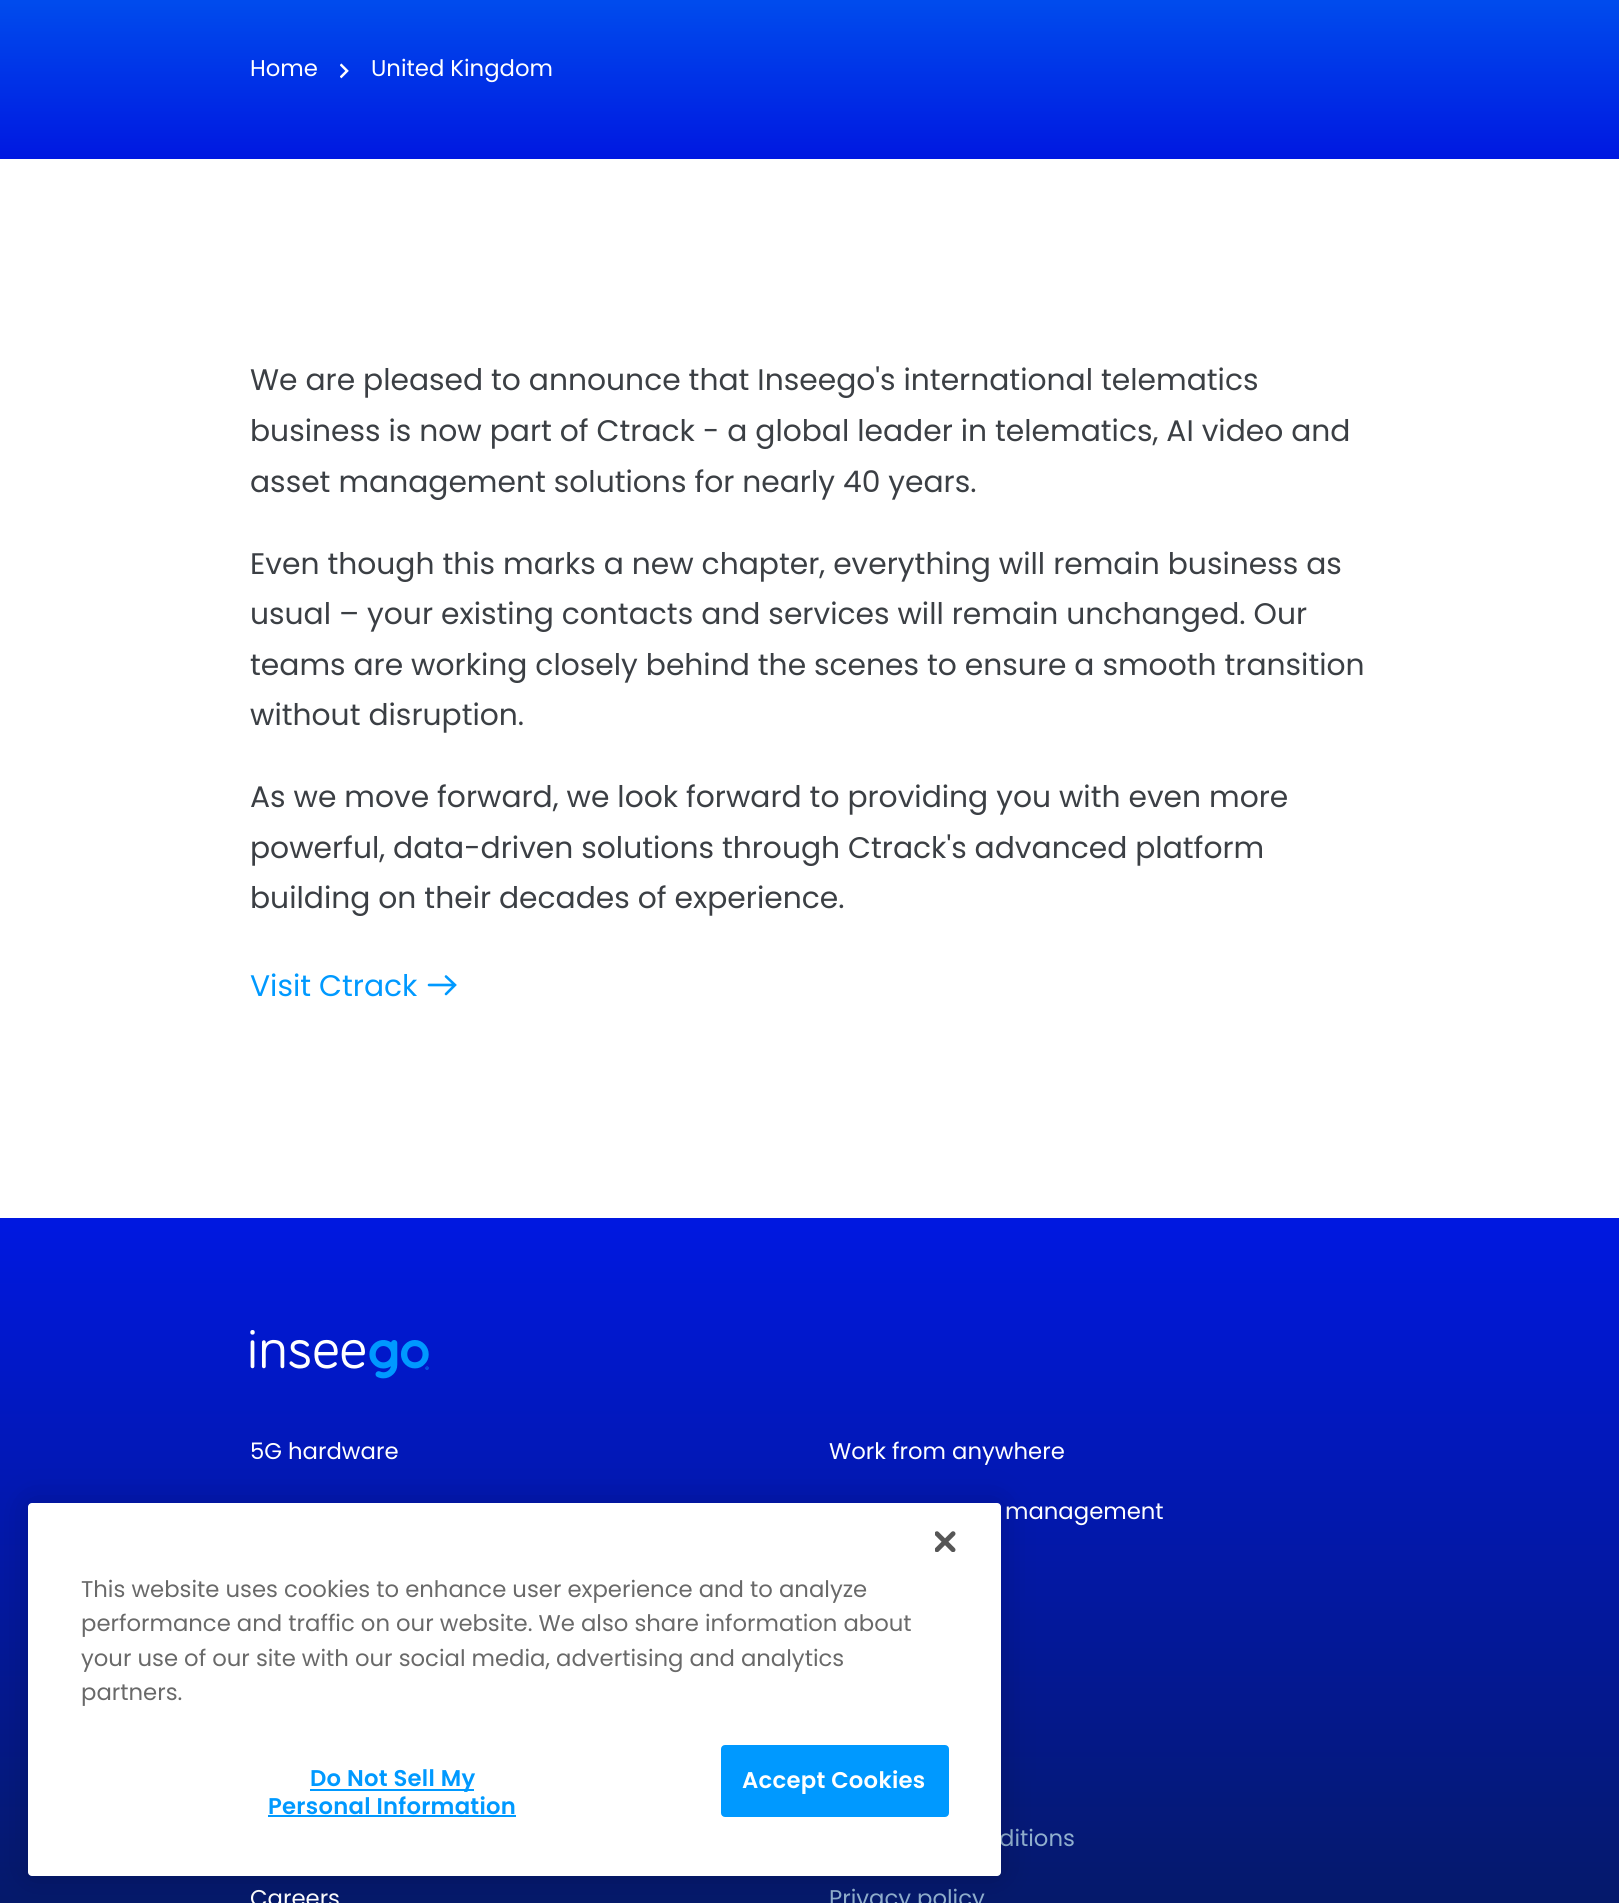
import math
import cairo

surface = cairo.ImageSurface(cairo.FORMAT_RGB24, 1619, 1903)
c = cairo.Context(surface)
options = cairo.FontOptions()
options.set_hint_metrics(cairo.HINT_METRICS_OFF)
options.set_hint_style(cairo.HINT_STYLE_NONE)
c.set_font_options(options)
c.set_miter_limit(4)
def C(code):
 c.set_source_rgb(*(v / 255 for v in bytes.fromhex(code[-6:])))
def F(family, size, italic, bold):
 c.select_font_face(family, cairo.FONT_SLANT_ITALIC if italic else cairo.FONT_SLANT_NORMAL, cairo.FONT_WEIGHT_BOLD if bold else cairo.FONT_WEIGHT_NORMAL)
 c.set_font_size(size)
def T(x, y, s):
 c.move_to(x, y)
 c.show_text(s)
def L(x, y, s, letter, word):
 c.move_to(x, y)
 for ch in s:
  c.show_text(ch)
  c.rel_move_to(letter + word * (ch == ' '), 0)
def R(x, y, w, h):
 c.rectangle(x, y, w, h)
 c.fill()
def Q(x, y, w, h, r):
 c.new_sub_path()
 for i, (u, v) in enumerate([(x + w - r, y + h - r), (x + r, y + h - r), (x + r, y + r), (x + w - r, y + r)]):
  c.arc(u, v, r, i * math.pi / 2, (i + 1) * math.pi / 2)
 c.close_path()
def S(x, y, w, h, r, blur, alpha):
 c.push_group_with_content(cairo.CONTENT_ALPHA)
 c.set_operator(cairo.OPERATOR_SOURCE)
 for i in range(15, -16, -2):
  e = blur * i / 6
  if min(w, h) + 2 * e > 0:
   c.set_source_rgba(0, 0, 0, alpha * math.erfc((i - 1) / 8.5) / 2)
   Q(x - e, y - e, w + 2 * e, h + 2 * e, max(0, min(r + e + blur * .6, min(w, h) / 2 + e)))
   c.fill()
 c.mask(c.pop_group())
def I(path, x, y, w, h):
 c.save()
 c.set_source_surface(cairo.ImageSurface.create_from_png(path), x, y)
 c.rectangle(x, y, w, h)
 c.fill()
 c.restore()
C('ffffff')
c.paint()
gradient = cairo.LinearGradient(810,-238,810,159)
gradient.add_color_stop_rgba(0,0,0.6,1,1)
gradient.add_color_stop_rgba(1,0,0.094,0.882,1)
c.set_source(gradient)
R(0,0,1619,159)
F('Poppins',22.75,0,0)
C('ffffff')
T(250,76,'Home')
I('1.png',340,63,9,16)
T(371,76,'United Kingdom')
F('Poppins',29.75,0,0)
C('3b3f44')
T(250,390,'We are pleased to announce that Inseego\'s international telematics')
T(250,441,'business is now part of Ctrack - a global leader in telematics, AI video and')
T(250,492,'asset management solutions for nearly 40 years.')
T(250,574,'Even though this marks a new chapter, everything will remain business as')
T(250,624,'usual – your existing contacts and services will remain unchanged. Our')
T(250,675,'teams are working closely behind the scenes to ensure a smooth transition')
T(250,725,'without disruption.')
T(250,807,'As we move forward, we look forward to providing you with even more')
T(250,858,'powerful, data-driven solutions through Ctrack\'s advanced platform')
T(250,908,'building on their decades of experience.')
C('0099ff')
T(250,996,'Visit Ctrack')
c.new_path()
c.move_to(446,976.5)
c.line_to(455,985)
c.line_to(446,994)
c.move_to(429,985)
c.line_to(453,985)
c.set_line_width(2.6)
c.set_line_cap(cairo.LINE_CAP_ROUND)
c.stroke()
gradient = cairo.LinearGradient(810,1218,810,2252)
gradient.add_color_stop_rgba(0,0,0.094,0.882,1)
gradient.add_color_stop_rgba(1,0.031,0.098,0.18,1)
c.set_source(gradient)
R(0,1218,1619,685)
I('2.png',250,1330,179,49)
F('Poppins',22.75,0,0)
C('ffffff')
T(250,1459,'5G hardware')
T(829,1459,'Work from anywhere')
T(1005,1519,'management')
T(250,1906,'Careers')
C('90afce')
T(999,1846,'ditions')
T(829,1906,'Privacy policy')
C('000000')
S(28,1503,973,373,4,16,.2)
C('ffffff')
Q(28,1503,973,373,4)
c.fill()
I('3.png',935,1531,21,21)
C('696969')
T(81,1597,'This website uses cookies to enhance user experience and to analyze')
T(81,1631,'performance and traffic on our website. We also share information about')
T(81,1666,'your use of our site with our social media, advertising and analytics')
T(81,1700,'partners.')
C('0099ff')
R(310,1789,164,2)
F('Poppins SemiBold',22.75,0,0)
L(310,1786,'Do Not Sell My',.25,0)
L(268,1814,'Personal Information',.25,0)
R(268,1815,248,2)
Q(722,1746,226,70,3)
c.fill_preserve()
c.set_line_width(2)
c.set_line_cap(cairo.LINE_CAP_BUTT)
c.stroke()
C('ffffff')
L(742,1788,'Accept Cookies',.25,0)
surface.write_to_png('o.png')
